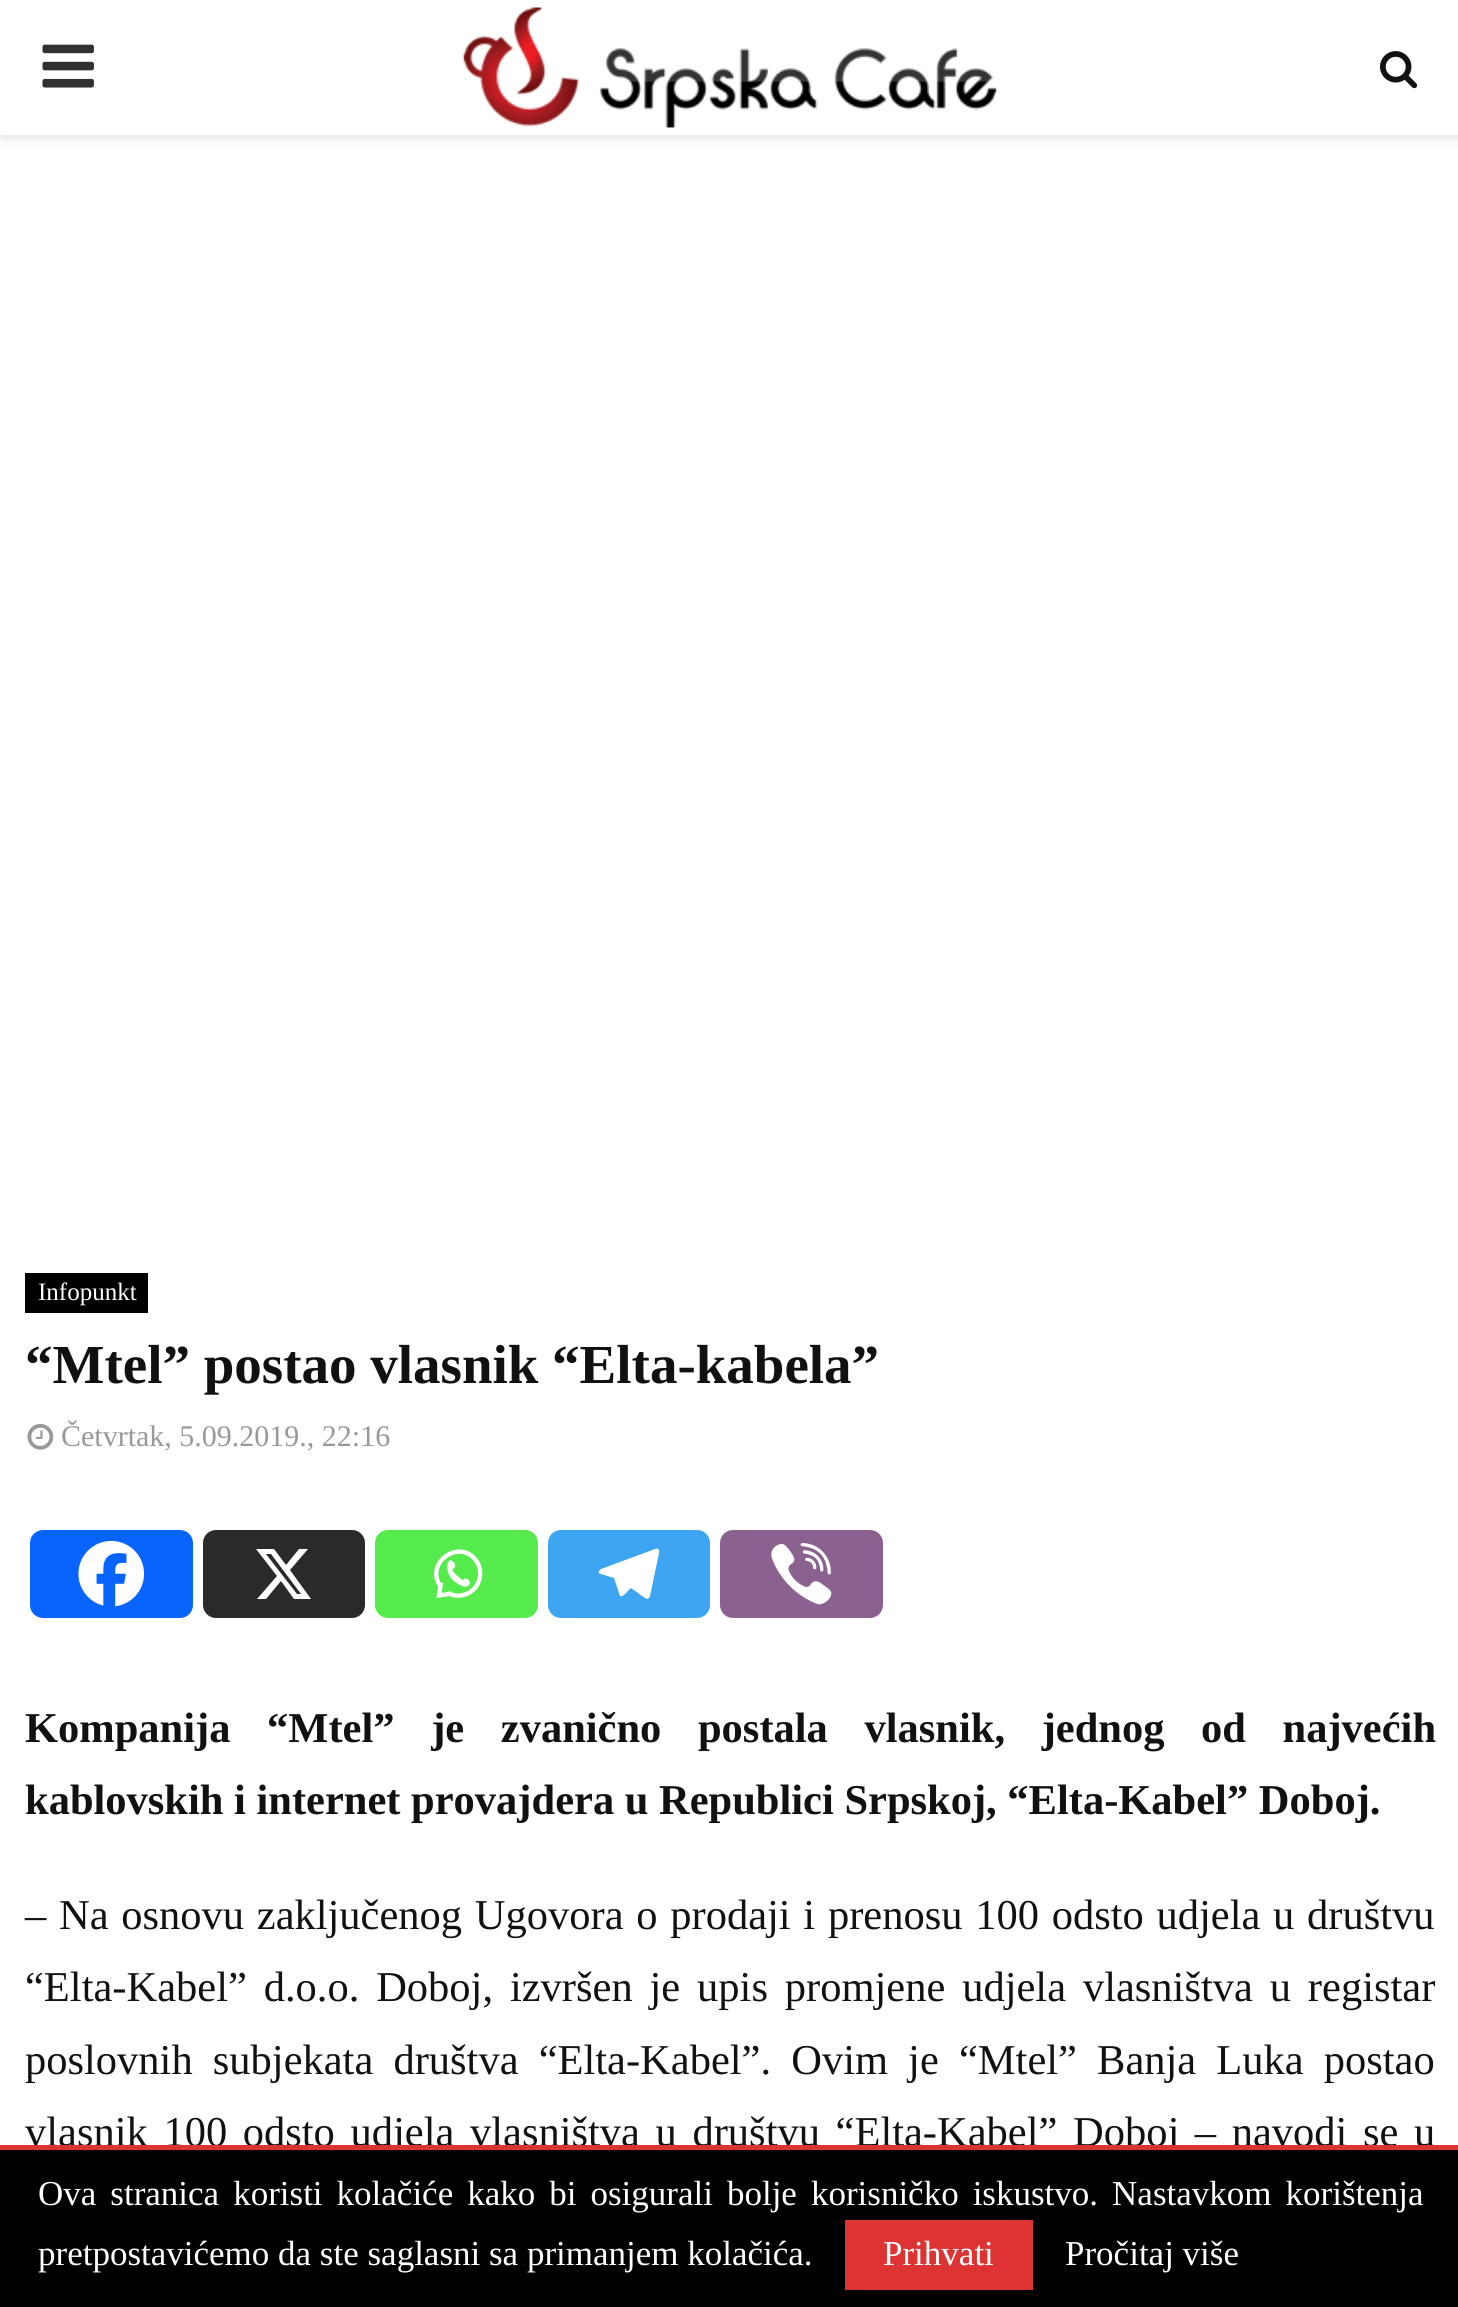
import math
import cairo

surface = cairo.ImageSurface(cairo.FORMAT_RGB24, 1458, 2307)
c = cairo.Context(surface)
options = cairo.FontOptions()
options.set_hint_metrics(cairo.HINT_METRICS_OFF)
options.set_hint_style(cairo.HINT_STYLE_NONE)
c.set_font_options(options)
c.set_miter_limit(4)
def C(code):
 c.set_source_rgb(*(v / 255 for v in bytes.fromhex(code[-6:])))
def F(family, size, italic, bold):
 c.select_font_face(family, cairo.FONT_SLANT_ITALIC if italic else cairo.FONT_SLANT_NORMAL, cairo.FONT_WEIGHT_BOLD if bold else cairo.FONT_WEIGHT_NORMAL)
 c.set_font_size(size)
def T(x, y, s):
 c.move_to(x, y)
 c.show_text(s)
def L(x, y, s, letter, word):
 c.move_to(x, y)
 for ch in s:
  c.show_text(ch)
  c.rel_move_to(letter + word * (ch == ' '), 0)
def R(x, y, w, h):
 c.rectangle(x, y, w, h)
 c.fill()
def Q(x, y, w, h, r):
 c.new_sub_path()
 for i, (u, v) in enumerate([(x + w - r, y + h - r), (x + r, y + h - r), (x + r, y + r), (x + w - r, y + r)]):
  c.arc(u, v, r, i * math.pi / 2, (i + 1) * math.pi / 2)
 c.close_path()
def S(x, y, w, h, r, blur, alpha):
 c.push_group_with_content(cairo.CONTENT_ALPHA)
 c.set_operator(cairo.OPERATOR_SOURCE)
 for i in range(15, -16, -2):
  e = blur * i / 6
  if min(w, h) + 2 * e > 0:
   c.set_source_rgba(0, 0, 0, alpha * math.erfc((i - 1) / 8.5) / 2)
   Q(x - e, y - e, w + 2 * e, h + 2 * e, max(0, min(r + e + blur * .6, min(w, h) / 2 + e)))
   c.fill()
 c.mask(c.pop_group())
def I(path, x, y, w, h):
 c.save()
 c.set_source_surface(cairo.ImageSurface.create_from_png(path), x, y)
 c.rectangle(x, y, w, h)
 c.fill()
 c.restore()
C('ffffff')
c.paint()
c.save()
c.rectangle(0,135,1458,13)
c.clip()
C('bebebe')
S(0,3,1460,135,0,6,.46)
c.restore()
I('1.png',42,44,52,44)
I('2.png',463,7,534,121)
I('3.png',1380,51,38,38)
C('000000')
R(25,1273,123,40)
F('Liberation Serif',25,0,0)
C('ffffff')
T(38,1300,'Infopunkt')
F('Liberation Serif',55,0,1)
C('111111')
T(25,1383,'“Mtel” postao vlasnik “Elta-kabela”')
I('4.png',27,1423,27,27)
F('Liberation Serif',30,0,0)
C('999999')
T(61,1446,'Četvrtak, 5.09.2019., 22:16')
C('0765fe')
Q(30,1530,163,88,13)
c.fill()
I('5.png',78,1540,67,67)
C('2a2a2a')
Q(203,1530,162,88,13)
c.fill()
C('ffffff')
c.new_path()
c.move_to(299,1549)
c.line_to(308,1549)
c.line_to(290,1570)
c.line_to(311,1599)
c.line_to(294,1599)
c.line_to(281,1581)
c.line_to(266,1599)
c.line_to(257,1599)
c.line_to(277,1576)
c.line_to(256,1549)
c.line_to(274,1549)
c.line_to(286,1565)
c.close_path()
c.move_to(297,1594)
c.line_to(301,1594)
c.line_to(271,1554)
c.line_to(266,1554)
c.close_path()
c.fill()
C('55eb4c')
Q(375,1530,163,88,13)
c.fill()
c.new_path()
c.move_to(451,1594.5)
c.curve_to(462.5,1598.5,475.5,1592,479,1580.5)
c.curve_to(481,1574.5,480.5,1567.5,477,1562)
c.curve_to(461.5,1537,423.5,1562,440.5,1586.5)
c.move_to(441,1582.5)
c.line_to(439,1595.5)
c.line_to(452,1593.5)
C('ffffff')
c.set_line_width(4.4)
c.stroke()
c.new_path()
c.move_to(447.5,1563)
c.curve_to(446,1574.5,452,1582.5,465,1587)
c.curve_to(476,1584.5,465,1574,463,1580.5)
c.curve_to(457,1576,453.5,1572.5,452,1569.5)
c.curve_to(460.5,1565,449.5,1558.5,449.5,1560.5)
c.fill()
C('3da5f1')
Q(548,1530,162,88,13)
c.fill()
C('ffffff')
c.new_path()
c.move_to(655,1549)
c.line_to(601,1569)
c.curve_to(598,1571,598,1573,601,1574)
c.line_to(614,1578)
c.line_to(620,1596)
c.curve_to(623,1598,629,1589,631,1588)
c.line_to(645,1598)
c.curve_to(647,1600,649,1599,650,1596)
c.line_to(659,1553)
c.curve_to(660,1549,657,1548,655,1549)
c.close_path()
c.fill()
C('8b628f')
Q(720,1530,163,88,13)
c.fill()
I('6.png',771,1543,61,62)
F('Liberation Serif',42.5,0,1)
C('111111')
L(25,1742,'Kompanija “Mtel” je zvanično postala vlasnik, jednog od najvećih',0,26)
T(25,1814,'kablovskih i internet provajdera u Republici Srpskoj, “Elta-Kabel” Doboj.')
F('Liberation Serif',42.5,0,0)
L(25,1929,'– Na osnovu zaključenog Ugovora o prodaji i prenosu 100 odsto udjela u društvu',0,2.1)
L(25,2001,'“Elta-Kabel” d.o.o. Doboj, izvršen je upis promjene udjela vlasništva u registar',0,6.25)
L(25,2074,'poslovnih subjekata društva “Elta-Kabel”. Ovim je “Mtel” Banja Luka postao',0,9.5)
L(25,2146,'vlasnik 100 odsto udjela vlasništva u društvu “Elta-Kabel” Doboj – navodi se u',0,5)
C('000000')
R(0,2150,1458,157)
C('dd3333')
R(0,2145,1458,5)
F('Liberation Serif',35,0,0)
C('ffffff')
L(38,2205,'Ova stranica koristi kolačiće kako bi osigurali bolje korisničko iskustvo. Nastavkom korištenja',0,5.25)
T(38,2265,'pretpostavićemo da ste saglasni sa primanjem kolačića.')
C('dd3333')
R(845,2220,188,70)
C('ffffff')
T(883,2265,'Prihvati')
T(1065,2265,'Pročitaj više')
surface.write_to_png('o.png')
